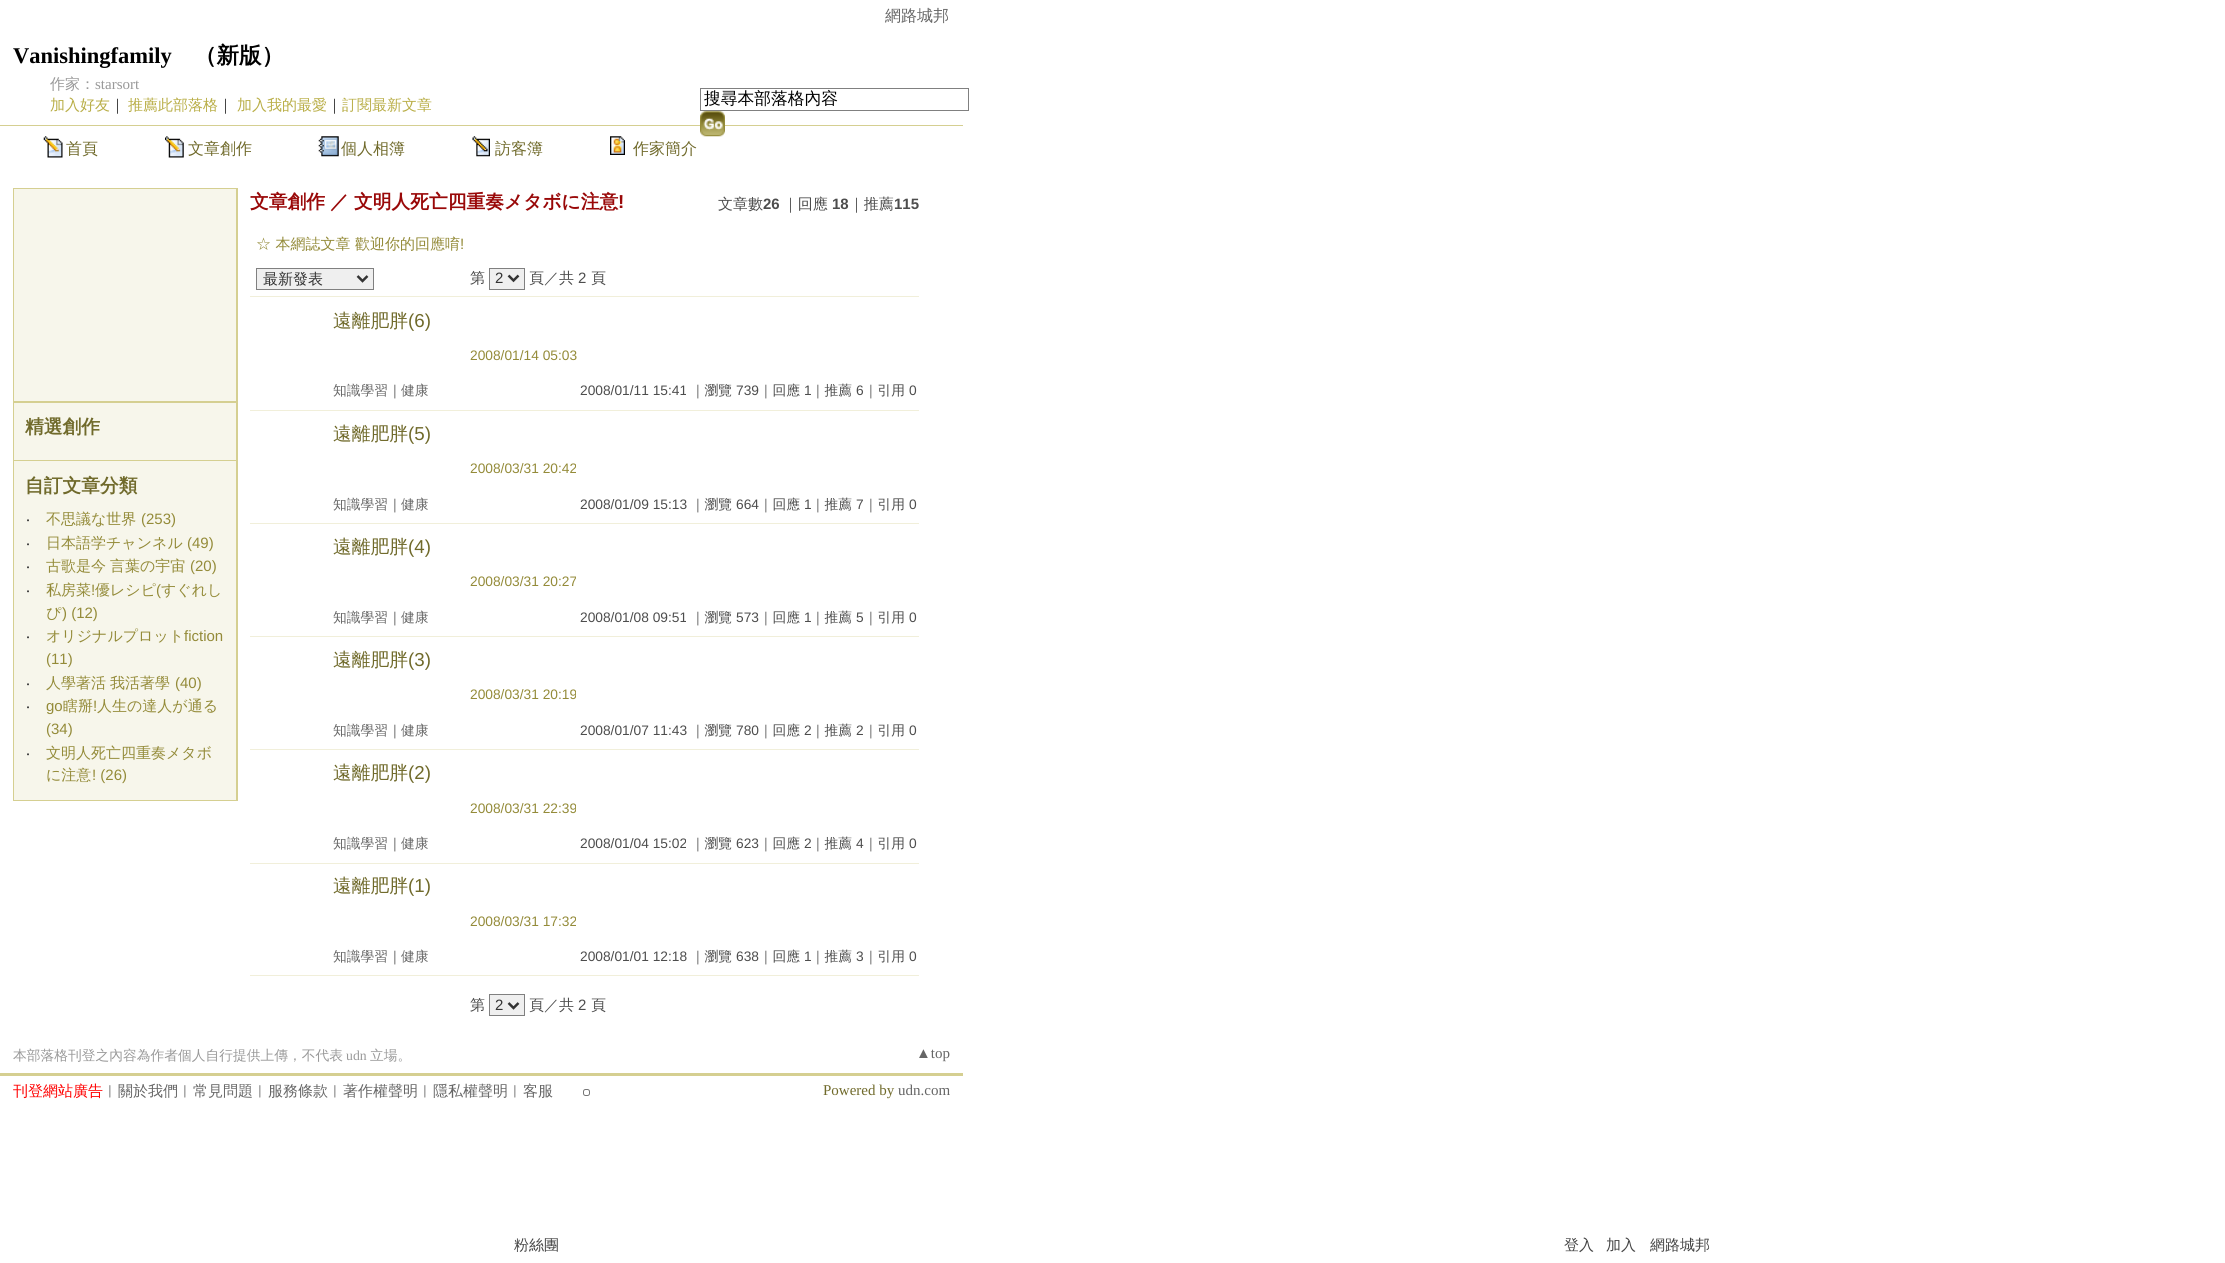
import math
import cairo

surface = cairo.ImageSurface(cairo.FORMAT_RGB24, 2225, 1263)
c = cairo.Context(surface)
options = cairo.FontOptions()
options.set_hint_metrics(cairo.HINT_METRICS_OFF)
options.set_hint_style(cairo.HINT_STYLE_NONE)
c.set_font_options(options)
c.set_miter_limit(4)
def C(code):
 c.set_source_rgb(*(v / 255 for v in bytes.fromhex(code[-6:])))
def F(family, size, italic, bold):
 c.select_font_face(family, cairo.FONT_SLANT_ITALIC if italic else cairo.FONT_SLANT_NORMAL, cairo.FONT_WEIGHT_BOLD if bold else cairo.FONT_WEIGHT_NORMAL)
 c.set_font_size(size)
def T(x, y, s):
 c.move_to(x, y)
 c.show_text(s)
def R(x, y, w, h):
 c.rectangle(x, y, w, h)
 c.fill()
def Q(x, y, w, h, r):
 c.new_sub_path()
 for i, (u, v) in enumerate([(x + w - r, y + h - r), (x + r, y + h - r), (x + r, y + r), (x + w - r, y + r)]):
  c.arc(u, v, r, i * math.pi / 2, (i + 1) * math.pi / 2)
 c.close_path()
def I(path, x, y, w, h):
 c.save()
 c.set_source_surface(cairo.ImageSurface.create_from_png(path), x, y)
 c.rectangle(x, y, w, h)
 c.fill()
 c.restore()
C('ffffff')
c.paint()
F('WenQuanYi Zen Hei Medium',16,0,0)
C('666666')
T(885,21,'網路城邦')
F('Liberation Serif',22.5,0,1)
C('000000')
T(13,63,'Vanishingfamily')
F('WenQuanYi Zen Hei',22.5,0,1)
T(194,63,'（新版）')
F('WenQuanYi Zen Hei Medium',15,0,0)
C('999999')
T(50,89,'作家：')
F('Liberation Serif',15,0,0)
T(95,89,'starsort')
F('WenQuanYi Zen Hei Medium',15,0,0)
C('b9ae47')
T(50,110,'加入好友')
C('333333')
T(110,110,'｜')
C('b9ae47')
T(128,110,'推薦此部落格')
C('333333')
T(218,110,'｜')
C('b9ae47')
T(237,110,'加入我的最愛')
C('333333')
T(327,110,'｜')
C('b9ae47')
T(342,110,'訂閱最新文章')
c.rectangle(700.5,88.5,268,22)
C('808080')
c.set_line_width(1)
c.stroke()
F('WenQuanYi Zen Hei Medium',16.75,0,0)
C('000000')
T(704,104,'搜尋本部落格內容')
C('d5cf91')
R(0,125,963,1)
I('1.png',700,111,25,26)
I('2.png',43,136,20,22)
F('WenQuanYi Zen Hei Medium',16,0,0)
C('706a2b')
T(66,154,'首頁')
I('3.png',165,136,19,22)
T(188,154,'文章創作')
I('4.png',318,136,21,21)
T(341,154,'個人相簿')
I('5.png',472,136,18,21)
T(495,154,'訪客簿')
I('6.png',610,136,15,19)
T(633,154,'作家簡介')
C('d5cf91')
R(13,188,225,613)
C('f7f6eb')
R(14,189,222,212)
R(14,403,222,57)
F('WenQuanYi Zen Hei',18.75,0,1)
C('706a2b')
T(25,433,'精選創作')
C('f7f6eb')
R(14,461,222,339)
C('706a2b')
T(25,492,'自訂文章分類')
F('Noto Sans',15,0,0)
C('333333')
T(26,524,'‧')
F('WenQuanYi Zen Hei Medium',15,0,0)
C('948b39')
T(46,524,'不思議な世界')
F('Liberation Sans',15,0,0)
T(141,524,'(253)')
F('Noto Sans',15,0,0)
C('333333')
T(26,548,'‧')
F('WenQuanYi Zen Hei Medium',15,0,0)
C('948b39')
T(46,548,'日本語学チャンネル')
F('Liberation Sans',15,0,0)
T(187,548,'(49)')
F('Noto Sans',15,0,0)
C('333333')
T(26,571,'‧')
F('WenQuanYi Zen Hei Medium',15,0,0)
C('948b39')
T(46,571,'古歌是今')
T(110,571,'言葉の宇宙')
F('Liberation Sans',15,0,0)
T(190,571,'(20)')
F('Noto Sans',15,0,0)
C('333333')
T(26,595,'‧')
F('WenQuanYi Zen Hei Medium',15,0,0)
C('948b39')
T(46,595,'私房菜')
F('Liberation Sans',15,0,0)
T(91,595,'!')
F('WenQuanYi Zen Hei Medium',15,0,0)
T(95,595,'優レシピ')
F('Liberation Sans',15,0,0)
T(156,595,'(')
F('WenQuanYi Zen Hei Medium',15,0,0)
T(161,595,'すぐれし')
T(46,618,'ぴ')
F('Liberation Sans',15,0,0)
T(62,618,') (12)')
F('Noto Sans',15,0,0)
C('333333')
T(26,641,'‧')
F('WenQuanYi Zen Hei Medium',15,0,0)
C('948b39')
T(46,641,'オリジナルプロット')
F('Liberation Sans',15,0,0)
T(184,641,'fiction')
T(46,664,'(11)')
F('Noto Sans',15,0,0)
C('333333')
T(26,688,'‧')
F('WenQuanYi Zen Hei Medium',15,0,0)
C('948b39')
T(46,688,'人學著活')
T(110,688,'我活著學')
F('Liberation Sans',15,0,0)
T(175,688,'(40)')
F('Noto Sans',15,0,0)
C('333333')
T(26,711,'‧')
F('Liberation Sans',15,0,0)
C('948b39')
T(46,711,'go')
F('WenQuanYi Zen Hei Medium',15,0,0)
T(63,711,'瞎掰')
F('Liberation Sans',15,0,0)
T(93,711,'!')
F('WenQuanYi Zen Hei Medium',15,0,0)
T(97,711,'人生の達人が通る')
F('Liberation Sans',15,0,0)
T(46,734,'(34)')
F('Noto Sans',15,0,0)
C('333333')
T(26,758,'‧')
F('WenQuanYi Zen Hei Medium',15,0,0)
C('948b39')
T(46,758,'文明人死亡四重奏メタボ')
T(46,780,'に注意')
F('Liberation Sans',15,0,0)
T(92,780,'! (26)')
F('WenQuanYi Zen Hei',18.75,0,1)
C('990808')
T(250,208,'文章創作')
T(330,208,'／')
T(354,208,'文明人死亡四重奏メタボに注意')
F('Liberation Sans',18.75,0,1)
T(618,208,'!')
F('WenQuanYi Zen Hei Medium',15,0,0)
C('4d4d4d')
T(718,209,'文章數')
F('Liberation Sans',15,0,1)
T(763,209,'26')
F('WenQuanYi Zen Hei Medium',15,0,0)
T(783,209,'｜回應')
F('Liberation Sans',15,0,1)
T(832,209,'18')
F('WenQuanYi Zen Hei Medium',15,0,0)
T(849,209,'｜推薦')
F('Liberation Sans',15,0,1)
T(894,209,'115')
F('WenQuanYi Zen Hei Medium',15,0,0)
C('948b39')
T(256,249,'☆ 本網誌文章')
T(355,249,'歡迎你的回應唷')
F('Liberation Sans',15,0,0)
T(460,249,'!')
C('efefef')
c.rectangle(256.5,268.5,117,21)
c.fill_preserve()
C('808080')
c.stroke()
c.new_path()
c.move_to(357.5,276)
c.line_to(362.5,281)
c.line_to(367.5,276)
C('333333')
c.set_line_width(2.5)
c.stroke()
F('WenQuanYi Zen Hei Medium',15,0,0)
T(263,284,'最新發表')
C('4d4d4d')
T(470,283,'第')
C('efefef')
c.rectangle(489.5,268.5,35,21)
c.fill_preserve()
C('808080')
c.set_line_width(1)
c.stroke()
c.new_path()
c.move_to(508.5,275.5)
c.line_to(513.5,280.5)
c.line_to(518.5,275.5)
C('333333')
c.set_line_width(2.5)
c.stroke()
F('Liberation Sans',15,0,0)
T(495,283,'2')
F('WenQuanYi Zen Hei Medium',15,0,0)
C('4d4d4d')
T(529,283,'頁／共')
F('Liberation Sans',15,0,0)
T(578,283,'2')
F('WenQuanYi Zen Hei Medium',15,0,0)
T(591,283,'頁')
C('f1efda')
R(250,296,669,1)
F('WenQuanYi Zen Hei Medium',18.75,0,0)
C('706a2b')
T(333,327,'遠離肥胖')
F('Liberation Sans',18.75,0,0)
T(408,327,'(6)')
F('Liberation Sans',13.75,0,0)
C('948b39')
T(470,360,'2008/01/14 05:03')
F('WenQuanYi Zen Hei Medium',13.75,0,0)
C('666666')
T(333,395,'知識學習')
C('4d4d4d')
T(388,395,'｜')
C('666666')
T(401,395,'健康')
F('Liberation Sans',13.75,0,0)
C('4d4d4d')
T(580,395,'2008/01/11 15:41')
F('WenQuanYi Zen Hei Medium',13.75,0,0)
T(691,395,'｜瀏覽')
F('Liberation Sans',13.75,0,0)
T(736,395,'739')
F('WenQuanYi Zen Hei Medium',13.75,0,0)
T(759,395,'｜回應')
F('Liberation Sans',13.75,0,0)
T(804,395,'1')
F('WenQuanYi Zen Hei Medium',13.75,0,0)
T(811,395,'｜推薦')
F('Liberation Sans',13.75,0,0)
T(856,395,'6')
F('WenQuanYi Zen Hei Medium',13.75,0,0)
T(864,395,'｜引用')
F('Liberation Sans',13.75,0,0)
T(909,395,'0')
C('f1efda')
R(250,410,669,1)
F('WenQuanYi Zen Hei Medium',18.75,0,0)
C('706a2b')
T(333,440,'遠離肥胖')
F('Liberation Sans',18.75,0,0)
T(408,440,'(5)')
F('Liberation Sans',13.75,0,0)
C('948b39')
T(470,473,'2008/03/31 20:42')
F('WenQuanYi Zen Hei Medium',13.75,0,0)
C('666666')
T(333,509,'知識學習')
C('4d4d4d')
T(388,509,'｜')
C('666666')
T(401,509,'健康')
F('Liberation Sans',13.75,0,0)
C('4d4d4d')
T(580,509,'2008/01/09 15:13')
F('WenQuanYi Zen Hei Medium',13.75,0,0)
T(691,509,'｜瀏覽')
F('Liberation Sans',13.75,0,0)
T(736,509,'664')
F('WenQuanYi Zen Hei Medium',13.75,0,0)
T(759,509,'｜回應')
F('Liberation Sans',13.75,0,0)
T(804,509,'1')
F('WenQuanYi Zen Hei Medium',13.75,0,0)
T(811,509,'｜推薦')
F('Liberation Sans',13.75,0,0)
T(856,509,'7')
F('WenQuanYi Zen Hei Medium',13.75,0,0)
T(864,509,'｜引用')
F('Liberation Sans',13.75,0,0)
T(909,509,'0')
C('f1efda')
R(250,523,669,1)
F('WenQuanYi Zen Hei Medium',18.75,0,0)
C('706a2b')
T(333,553,'遠離肥胖')
F('Liberation Sans',18.75,0,0)
T(408,553,'(4)')
F('Liberation Sans',13.75,0,0)
C('948b39')
T(470,586,'2008/03/31 20:27')
F('WenQuanYi Zen Hei Medium',13.75,0,0)
C('666666')
T(333,622,'知識學習')
C('4d4d4d')
T(388,622,'｜')
C('666666')
T(401,622,'健康')
F('Liberation Sans',13.75,0,0)
C('4d4d4d')
T(580,622,'2008/01/08 09:51')
F('WenQuanYi Zen Hei Medium',13.75,0,0)
T(691,622,'｜瀏覽')
F('Liberation Sans',13.75,0,0)
T(736,622,'573')
F('WenQuanYi Zen Hei Medium',13.75,0,0)
T(759,622,'｜回應')
F('Liberation Sans',13.75,0,0)
T(804,622,'1')
F('WenQuanYi Zen Hei Medium',13.75,0,0)
T(811,622,'｜推薦')
F('Liberation Sans',13.75,0,0)
T(856,622,'5')
F('WenQuanYi Zen Hei Medium',13.75,0,0)
T(864,622,'｜引用')
F('Liberation Sans',13.75,0,0)
T(909,622,'0')
C('f1efda')
R(250,636,669,1)
F('WenQuanYi Zen Hei Medium',18.75,0,0)
C('706a2b')
T(333,666,'遠離肥胖')
F('Liberation Sans',18.75,0,0)
T(408,666,'(3)')
F('Liberation Sans',13.75,0,0)
C('948b39')
T(470,699,'2008/03/31 20:19')
F('WenQuanYi Zen Hei Medium',13.75,0,0)
C('666666')
T(333,735,'知識學習')
C('4d4d4d')
T(388,735,'｜')
C('666666')
T(401,735,'健康')
F('Liberation Sans',13.75,0,0)
C('4d4d4d')
T(580,735,'2008/01/07 11:43')
F('WenQuanYi Zen Hei Medium',13.75,0,0)
T(691,735,'｜瀏覽')
F('Liberation Sans',13.75,0,0)
T(736,735,'780')
F('WenQuanYi Zen Hei Medium',13.75,0,0)
T(759,735,'｜回應')
F('Liberation Sans',13.75,0,0)
T(804,735,'2')
F('WenQuanYi Zen Hei Medium',13.75,0,0)
T(811,735,'｜推薦')
F('Liberation Sans',13.75,0,0)
T(856,735,'2')
F('WenQuanYi Zen Hei Medium',13.75,0,0)
T(864,735,'｜引用')
F('Liberation Sans',13.75,0,0)
T(909,735,'0')
C('f1efda')
R(250,749,669,1)
F('WenQuanYi Zen Hei Medium',18.75,0,0)
C('706a2b')
T(333,779,'遠離肥胖')
F('Liberation Sans',18.75,0,0)
T(408,779,'(2)')
F('Liberation Sans',13.75,0,0)
C('948b39')
T(470,813,'2008/03/31 22:39')
F('WenQuanYi Zen Hei Medium',13.75,0,0)
C('666666')
T(333,848,'知識學習')
C('4d4d4d')
T(388,848,'｜')
C('666666')
T(401,848,'健康')
F('Liberation Sans',13.75,0,0)
C('4d4d4d')
T(580,848,'2008/01/04 15:02')
F('WenQuanYi Zen Hei Medium',13.75,0,0)
T(691,848,'｜瀏覽')
F('Liberation Sans',13.75,0,0)
T(736,848,'623')
F('WenQuanYi Zen Hei Medium',13.75,0,0)
T(759,848,'｜回應')
F('Liberation Sans',13.75,0,0)
T(804,848,'2')
F('WenQuanYi Zen Hei Medium',13.75,0,0)
T(811,848,'｜推薦')
F('Liberation Sans',13.75,0,0)
T(856,848,'4')
F('WenQuanYi Zen Hei Medium',13.75,0,0)
T(864,848,'｜引用')
F('Liberation Sans',13.75,0,0)
T(909,848,'0')
C('f1efda')
R(250,863,669,1)
F('WenQuanYi Zen Hei Medium',18.75,0,0)
C('706a2b')
T(333,892,'遠離肥胖')
F('Liberation Sans',18.75,0,0)
T(408,892,'(1)')
F('Liberation Sans',13.75,0,0)
C('948b39')
T(470,926,'2008/03/31 17:32')
F('WenQuanYi Zen Hei Medium',13.75,0,0)
C('666666')
T(333,961,'知識學習')
C('4d4d4d')
T(388,961,'｜')
C('666666')
T(401,961,'健康')
F('Liberation Sans',13.75,0,0)
C('4d4d4d')
T(580,961,'2008/01/01 12:18')
F('WenQuanYi Zen Hei Medium',13.75,0,0)
T(691,961,'｜瀏覽')
F('Liberation Sans',13.75,0,0)
T(736,961,'638')
F('WenQuanYi Zen Hei Medium',13.75,0,0)
T(759,961,'｜回應')
F('Liberation Sans',13.75,0,0)
T(804,961,'1')
F('WenQuanYi Zen Hei Medium',13.75,0,0)
T(811,961,'｜推薦')
F('Liberation Sans',13.75,0,0)
T(856,961,'3')
F('WenQuanYi Zen Hei Medium',13.75,0,0)
T(864,961,'｜引用')
F('Liberation Sans',13.75,0,0)
T(909,961,'0')
C('f1efda')
R(250,975,669,1)
F('WenQuanYi Zen Hei Medium',15,0,0)
C('4d4d4d')
T(470,1010,'第')
C('efefef')
c.rectangle(489.5,994.5,35,21)
c.fill_preserve()
C('808080')
c.set_line_width(1)
c.stroke()
c.new_path()
c.move_to(508.5,1003)
c.line_to(513.5,1008)
c.line_to(518.5,1003)
C('333333')
c.set_line_width(2.5)
c.stroke()
F('Liberation Sans',15,0,0)
T(495,1010,'2')
F('WenQuanYi Zen Hei Medium',15,0,0)
C('4d4d4d')
T(529,1010,'頁／共')
F('Liberation Sans',15,0,0)
T(578,1010,'2')
F('WenQuanYi Zen Hei Medium',15,0,0)
T(591,1010,'頁')
C('d5cf91')
R(0,1073,963,3)
F('WenQuanYi Zen Hei Medium',13.75,0,0)
C('999999')
T(13,1060,'本部落格刊登之內容為作者個人自行提供上傳，不代表')
F('Liberation Serif',13.75,0,0)
T(346,1060,'udn')
F('WenQuanYi Zen Hei Medium',13.75,0,0)
T(370,1060,'立場。')
F('Liberation Serif',15,0,0)
C('666666')
T(916,1058,'▲top')
F('WenQuanYi Zen Hei Medium',15,0,0)
C('ff0000')
T(13,1096,'刊登網站廣告')
C('333333')
T(103,1096,'︱')
C('666666')
T(118,1096,'關於我們')
C('333333')
T(178,1096,'︱')
C('666666')
T(193,1096,'常見問題')
C('333333')
T(253,1096,'︱')
C('666666')
T(268,1096,'服務條款')
C('333333')
T(328,1096,'︱')
C('666666')
T(343,1096,'著作權聲明')
C('333333')
T(418,1096,'︱')
C('666666')
T(433,1096,'隱私權聲明')
C('333333')
T(508,1096,'︱')
C('666666')
T(523,1096,'客服')
Q(583.5,1089.5,6,6,2)
C('767676')
c.set_line_width(1)
c.stroke()
F('Liberation Serif',15,0,0)
C('706a2b')
T(823,1095,'Powered by')
C('666666')
T(898,1095,'udn.com')
F('WenQuanYi Zen Hei Medium',15,0,0)
C('444444')
T(514,1250,'粉絲團')
T(1564,1250,'登入')
T(1606,1250,'加入')
T(1650,1250,'網路城邦')
surface.write_to_png('o.png')
